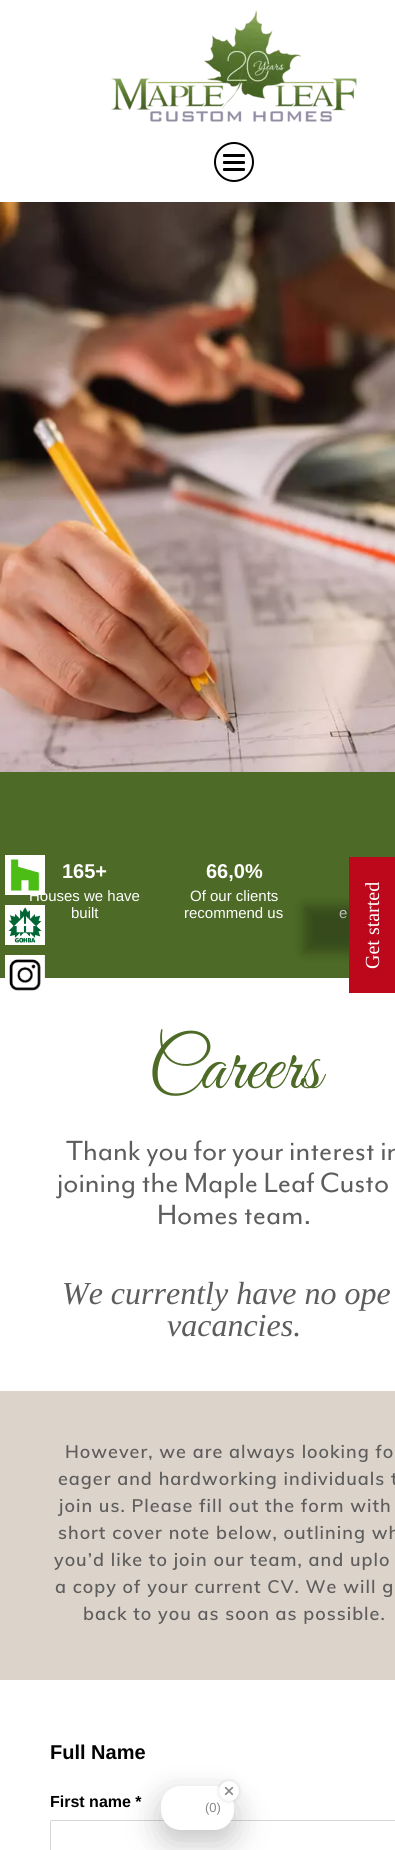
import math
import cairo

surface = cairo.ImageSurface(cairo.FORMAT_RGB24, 395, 1850)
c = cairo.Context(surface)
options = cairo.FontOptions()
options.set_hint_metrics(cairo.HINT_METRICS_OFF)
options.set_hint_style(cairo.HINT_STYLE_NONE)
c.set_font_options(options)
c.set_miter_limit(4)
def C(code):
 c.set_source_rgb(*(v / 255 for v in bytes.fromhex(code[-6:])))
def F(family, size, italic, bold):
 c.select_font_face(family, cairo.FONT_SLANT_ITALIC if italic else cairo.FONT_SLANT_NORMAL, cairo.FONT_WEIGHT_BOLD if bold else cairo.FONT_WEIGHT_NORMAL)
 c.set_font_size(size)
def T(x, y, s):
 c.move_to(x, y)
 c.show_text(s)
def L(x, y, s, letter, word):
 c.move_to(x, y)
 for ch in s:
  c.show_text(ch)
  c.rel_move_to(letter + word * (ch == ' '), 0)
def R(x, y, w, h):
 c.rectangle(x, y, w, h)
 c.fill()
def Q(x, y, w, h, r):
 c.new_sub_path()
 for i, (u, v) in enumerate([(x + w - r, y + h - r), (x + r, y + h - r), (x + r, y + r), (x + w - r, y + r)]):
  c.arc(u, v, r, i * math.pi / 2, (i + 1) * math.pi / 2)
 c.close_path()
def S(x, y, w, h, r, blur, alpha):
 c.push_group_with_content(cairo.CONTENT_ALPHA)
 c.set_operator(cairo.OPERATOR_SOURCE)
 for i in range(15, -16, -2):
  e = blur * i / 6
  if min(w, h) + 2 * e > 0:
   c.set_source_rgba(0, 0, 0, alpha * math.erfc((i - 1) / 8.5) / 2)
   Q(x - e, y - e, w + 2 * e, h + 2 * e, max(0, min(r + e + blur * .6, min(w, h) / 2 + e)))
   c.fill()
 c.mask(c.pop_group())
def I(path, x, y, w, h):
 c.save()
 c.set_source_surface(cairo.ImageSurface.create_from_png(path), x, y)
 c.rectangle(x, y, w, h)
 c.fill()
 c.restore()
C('dcd3cb')
c.paint()
C('ffffff')
R(0,0,395,202)
I('1.png',111,10,246,112)
c.arc(234,162,19,0,2 * math.pi)
C('000000')
c.stroke()
Q(223,161,22,3,1)
c.fill()
Q(223,154,22,3,1)
c.fill()
Q(223,168,22,3,1)
c.fill()
I('2.png',0,202,395,570)
C('4d6a26')
R(0,772,395,206)
F('Liberation Sans',15,0,0)
C('ffffff')
T(29,901,'Houses we have')
I('3.png',5,855,40,40)
I('4.png',5,905,40,40)
R(0,978,395,413)
I('5.png',5,955,40,36)
F('Liberation Sans',20,0,1)
T(62,878,'165+')
F('Liberation Sans',15,0,0)
T(71,918,'built')
F('Liberation Sans',20,0,1)
T(206,878,'66,0%')
F('Liberation Sans',15,0,0)
T(190,901,'Of our clients')
T(184,918,'recommend us')
T(339,918,'e')
C('000000')
S(304,906,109,46,0,6,.3)
C('bd081c')
R(349,857,46,136)
F('Liberation Serif',20,0,0)
C('ffffff')
c.save()
c.translate(379,969)
c.rotate(-90 * math.pi / 180)
T(0,0,'Get started')
c.restore()
F('Great Vibes',73,0,0)
C('4d6a26')
T(148,1088,'Careers')
F('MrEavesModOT',32,0,0)
C('5d5d5d')
T(66,1160,'Thank you for your interest in')
T(57,1192,'joining the Maple Leaf Custo')
T(157,1224,'Homes team.')
F('Liberation Serif',32,1,0)
T(62,1304,'We currently have no ope')
T(167,1336,'vacancies.')
F('Muli SemiBold',18,0,0)
L(65,1458,'However, we are always looking fo',1,0)
L(58,1485,'eager and hardworking individuals t',1,0)
L(59,1512,'join us. Please fill out the form with',1,0)
L(58,1539,'short cover note below, outlining wh',1,0)
L(54,1566,'you’d like to join our team, and uplo',1,0)
L(55,1593,'a copy of your current CV. We will g',1,0)
L(83,1620,'back to you as soon as possible.',1,0)
C('ffffff')
R(0,1680,395,170)
F('Liberation Sans',20,0,1)
C('000000')
T(50,1759,'Full Name')
F('Liberation Sans',16,0,1)
T(50,1807,'First name *')
Q(50.5,1820.5,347,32,1.5)
C('d6d6d6')
c.set_line_width(1)
c.stroke()
C('000000')
S(161,1796,73,44,20,15,.15)
S(161,1801,73,44,20,20,.1)
C('ffffff')
Q(161,1786,73,44,20)
c.fill()
C('000000')
S(219,1781,20,20,10,2,.15)
C('ffffff')
c.arc(229,1791,10,0,2 * math.pi)
c.fill()
I('6.png',224,1786,10,10)
F('Liberation Sans',13,0,0)
C('888888')
T(205,1812,'(0)')
surface.write_to_png('o.png')
